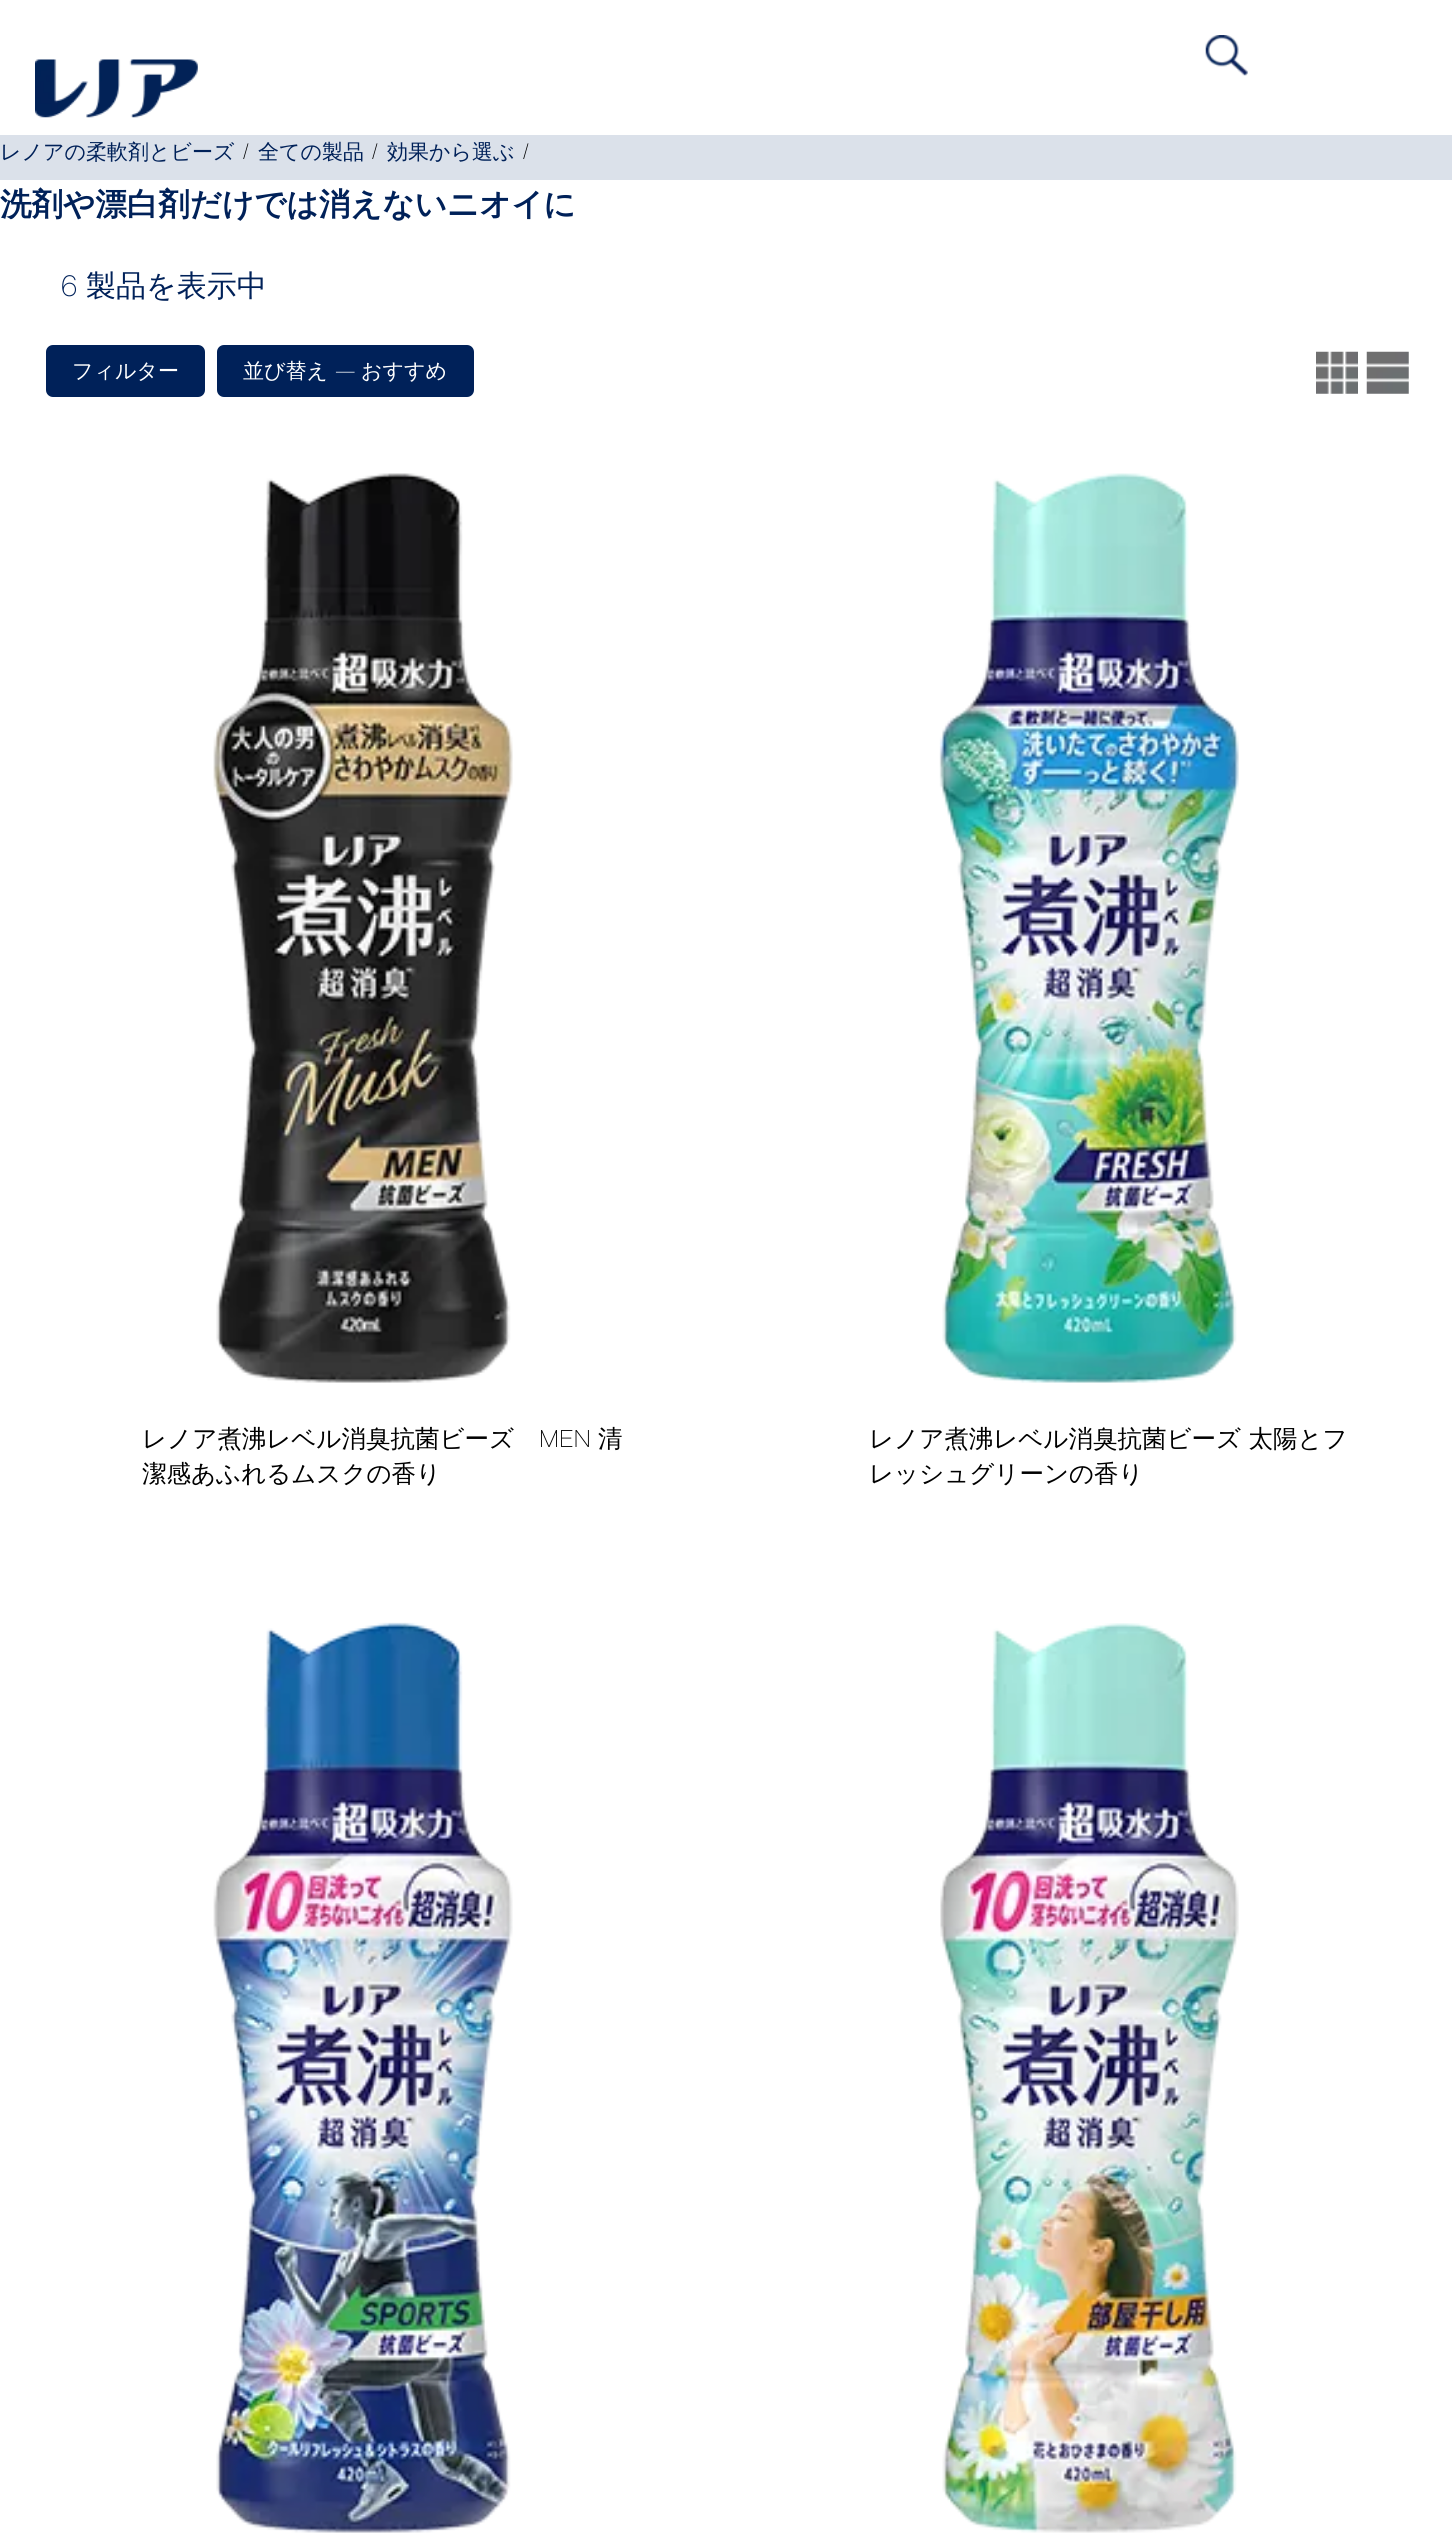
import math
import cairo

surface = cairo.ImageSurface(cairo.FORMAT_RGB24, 1452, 2548)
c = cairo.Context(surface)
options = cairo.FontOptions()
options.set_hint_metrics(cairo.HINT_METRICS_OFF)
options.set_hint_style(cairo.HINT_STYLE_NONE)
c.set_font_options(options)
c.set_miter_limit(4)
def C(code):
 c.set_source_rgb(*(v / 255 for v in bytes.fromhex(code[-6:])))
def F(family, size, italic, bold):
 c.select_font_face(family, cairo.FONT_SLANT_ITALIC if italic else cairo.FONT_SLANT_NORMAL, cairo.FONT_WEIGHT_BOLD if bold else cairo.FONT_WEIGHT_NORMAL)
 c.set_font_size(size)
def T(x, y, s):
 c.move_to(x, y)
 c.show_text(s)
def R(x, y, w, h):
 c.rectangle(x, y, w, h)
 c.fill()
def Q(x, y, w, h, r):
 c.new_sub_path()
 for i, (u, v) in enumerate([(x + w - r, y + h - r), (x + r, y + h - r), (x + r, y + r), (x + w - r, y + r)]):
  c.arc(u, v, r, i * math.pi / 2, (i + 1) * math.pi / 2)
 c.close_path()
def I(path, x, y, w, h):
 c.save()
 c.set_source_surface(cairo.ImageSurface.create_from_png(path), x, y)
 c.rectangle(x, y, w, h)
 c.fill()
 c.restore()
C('ffffff')
c.paint()
I('1.png',35,59,163,59)
I('2.png',1205,35,43,41)
C('dbe1ea')
R(0,135,1452,45)
F('WenQuanYi Zen Hei Medium',21,0,0)
C('002159')
T(0,159,'レノアの柔軟剤とビーズ')
F('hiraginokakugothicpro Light',21,0,0)
C('000000')
T(243,159,'/')
F('WenQuanYi Zen Hei Medium',21,0,0)
C('002159')
T(258,159,'全ての製品')
F('hiraginokakugothicpro Light',21,0,0)
C('000000')
T(372,159,'/')
F('WenQuanYi Zen Hei Medium',21,0,0)
C('002159')
T(387,159,'効果から選ぶ')
F('hiraginokakugothicpro Light',21,0,0)
C('000000')
T(523,159,'/')
F('WenQuanYi Zen Hei',31.5,0,1)
C('002159')
T(0,215,'洗剤や漂白剤だけでは消えないニオイに')
F('hiraginokakugothicpro Light',30,0,0)
T(61,296,'6')
F('WenQuanYi Zen Hei Medium',30,0,0)
T(86,296,'製品を表示中')
Q(45,344,161,54,8)
c.fill_preserve()
C('ffffff')
c.stroke()
F('WenQuanYi Zen Hei Medium',21,0,0)
T(72,378,'フィルター')
C('002159')
Q(216,344,259,54,8)
c.fill_preserve()
C('ffffff')
c.stroke()
T(243,378,'並び替え')
F('hiraginokakugothicpro Light',21,0,0)
T(335,378,'—')
F('WenQuanYi Zen Hei Medium',21,0,0)
T(361,378,'おすすめ')
I('3.png',1316,351,42,43)
I('4.png',1366,351,43,43)
I('5.png',213,473,300,910)
F('WenQuanYi Zen Hei Medium',24.5,0,0)
C('000000')
T(142,1447,'レノア煮沸レベル消臭抗菌ビーズ')
F('hiraginokakugothicpro Light',24.5,0,0)
T(539,1447,'MEN')
F('WenQuanYi Zen Hei Medium',24.5,0,0)
T(598,1447,'清')
T(142,1482,'潔感あふれるムスクの香り')
I('6.png',939,473,300,910)
T(869,1447,'レノア煮沸レベル消臭抗菌ビーズ 太陽とフ')
T(869,1482,'レッシュグリーンの香り')
I('7.png',213,1622,300,911)
I('8.png',940,1623,299,910)
surface.write_to_png('o.png')
